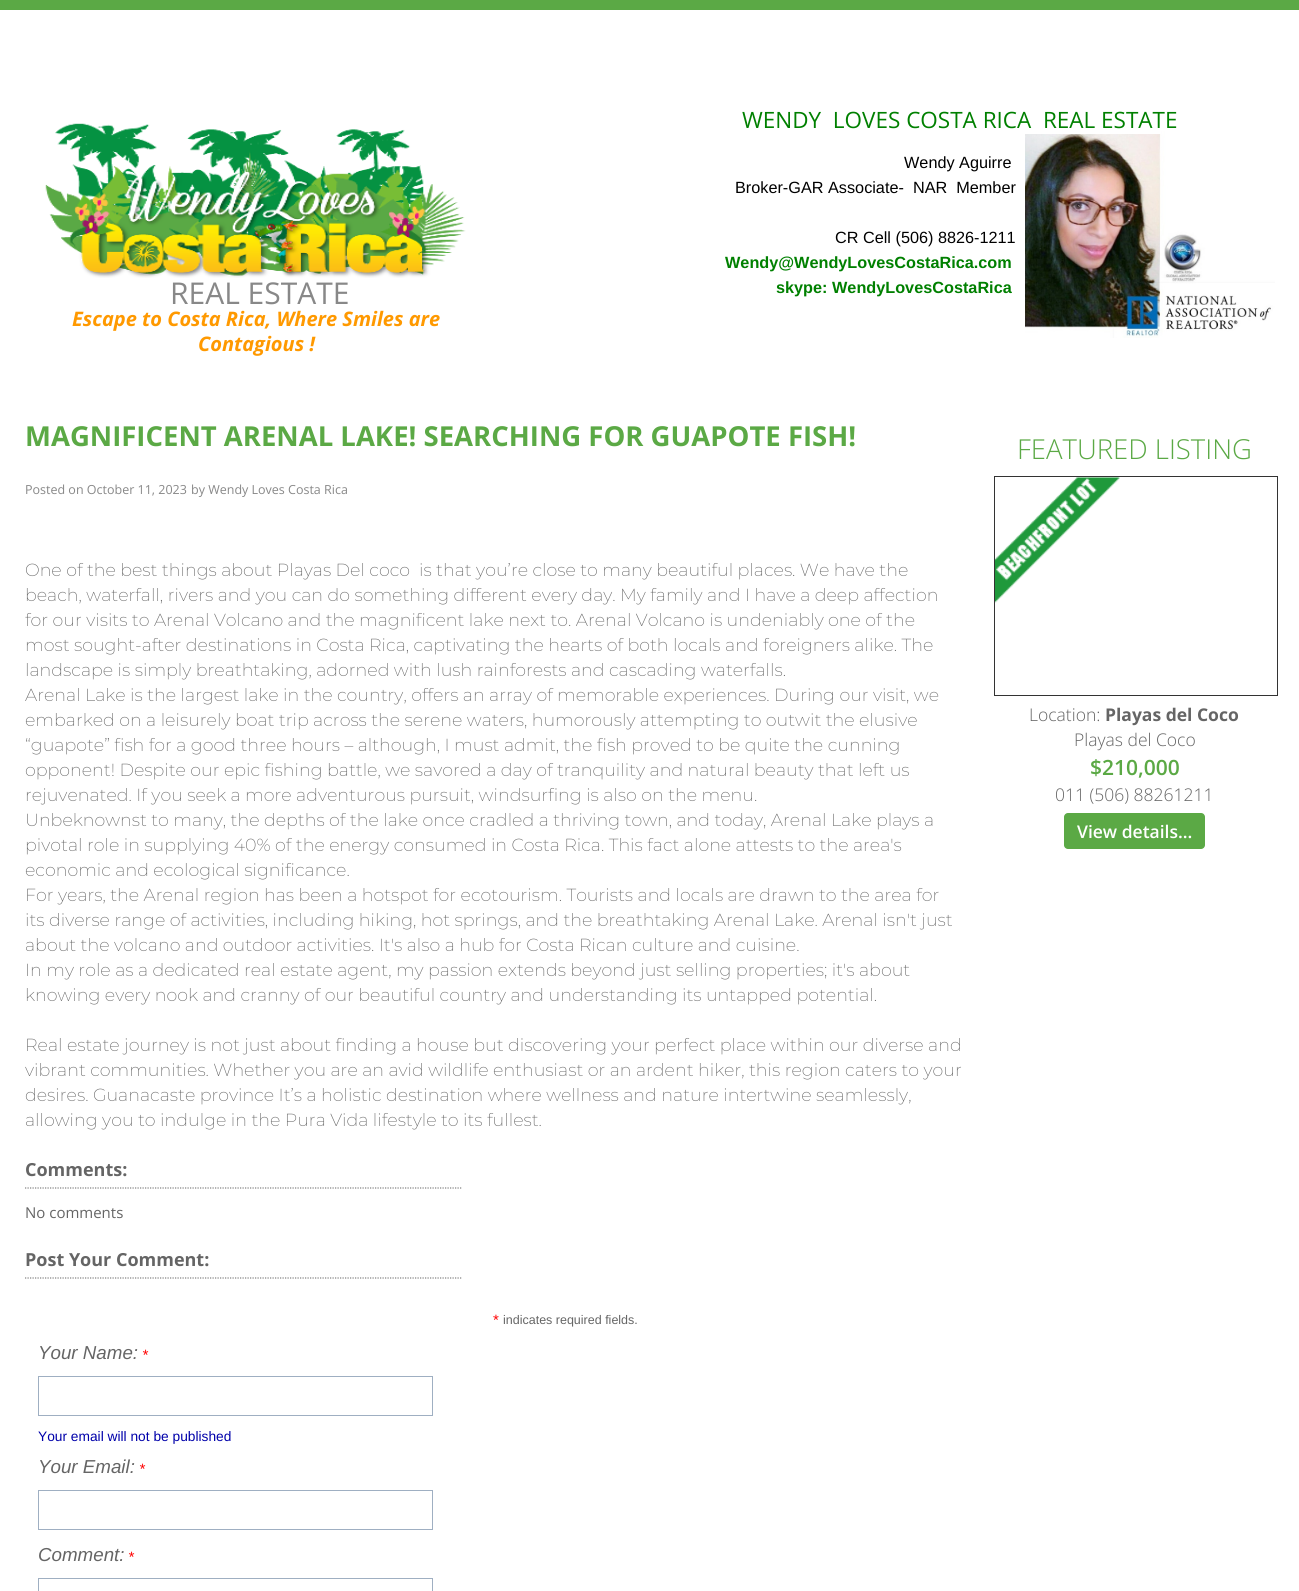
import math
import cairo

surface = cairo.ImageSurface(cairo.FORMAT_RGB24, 1299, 1591)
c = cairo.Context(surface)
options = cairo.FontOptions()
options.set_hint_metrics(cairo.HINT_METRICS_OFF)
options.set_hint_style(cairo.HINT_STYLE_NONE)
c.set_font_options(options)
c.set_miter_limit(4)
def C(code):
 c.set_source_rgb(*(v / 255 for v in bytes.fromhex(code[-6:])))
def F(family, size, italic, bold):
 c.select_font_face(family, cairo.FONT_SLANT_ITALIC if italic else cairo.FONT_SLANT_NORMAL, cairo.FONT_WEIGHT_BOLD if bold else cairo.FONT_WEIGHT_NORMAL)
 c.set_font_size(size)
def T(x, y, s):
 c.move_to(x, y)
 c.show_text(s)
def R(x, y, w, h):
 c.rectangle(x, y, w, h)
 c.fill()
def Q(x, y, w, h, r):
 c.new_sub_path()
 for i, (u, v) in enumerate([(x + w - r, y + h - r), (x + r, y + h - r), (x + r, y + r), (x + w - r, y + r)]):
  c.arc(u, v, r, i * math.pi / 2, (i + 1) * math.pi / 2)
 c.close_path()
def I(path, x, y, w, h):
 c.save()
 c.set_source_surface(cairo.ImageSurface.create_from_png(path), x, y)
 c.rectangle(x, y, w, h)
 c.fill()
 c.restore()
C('ffffff')
c.paint()
C('5ba945')
R(0,0,1299,10)
F('Open Sans',22.5,0,0)
C('008000')
T(742,128,'WENDY  LOVES COSTA RICA  REAL ESTATE')
I('1.png',1025,131,250,207)
C('ffffff')
R(1025,131,136,3)
F('Liberation Sans',16.25,0,0)
C('000000')
T(904,168,'Wendy Aguirre')
T(735,193,'Broker-GAR Associate-  NAR  Member')
T(835,243,'CR Cell (506) 8826-1211')
F('Liberation Sans',16.25,0,1)
C('008000')
T(725,268,'Wendy@WendyLovesCostaRica.com')
T(776,293,'skype: WendyLovesCostaRica')
I('2.png',45,123,421,155)
F('Open Sans',30,0,0)
C('888888')
T(170,304,'REAL ESTATE')
F('Open Sans',20,1,1)
C('ff9900')
T(72,326,'Escape to Costa Rica, Where Smiles are')
T(198,351,'Contagious !')
F('Open Sans',27.5,0,1)
C('5ba945')
T(25,446,'MAGNIFICENT ARENAL LAKE! SEARCHING FOR GUAPOTE FISH!')
F('Open Sans',12.5,0,0)
C('888888')
T(25,494,'Posted on October 11, 2023')
T(191,494,'by Wendy Loves Costa Rica')
F('Montserrat ExtraLight',17.5,0,0)
C('656565')
T(25,576,'One of the best things about Playas Del coco')
T(419,576,'is that you’re close to many beautiful places. We have the')
T(25,601,'beach, waterfall, rivers and you can do something different every day. My family and I have a deep affection')
T(25,626,'for our visits to Arenal Volcano and the magnificent lake next to. Arenal Volcano is undeniably one of the')
T(25,651,'most sought-after destinations in Costa Rica, captivating the hearts of both locals and foreigners alike. The')
T(25,676,'landscape is simply breathtaking, adorned with lush rainforests and cascading waterfalls.')
T(25,701,'Arenal Lake is the largest lake in the country, offers an array of memorable experiences. During our visit, we')
T(25,726,'embarked on a leisurely boat trip across the serene waters, humorously attempting to outwit the elusive')
T(25,751,'“guapote” fish for a good three hours – although, I must admit, the fish proved to be quite the cunning')
T(25,776,'opponent! Despite our epic fishing battle, we savored a day of tranquility and natural beauty that left us')
T(25,801,'rejuvenated. If you seek a more adventurous pursuit, windsurfing is also on the menu.')
T(25,826,'Unbeknownst to many, the depths of the lake once cradled a thriving town, and today, Arenal Lake plays a')
T(25,851,'pivotal role in supplying 40% of the energy consumed in Costa Rica. This fact alone attests to the area\'s')
T(25,876,'economic and ecological significance.')
T(25,901,'For years, the Arenal region has been a hotspot for ecotourism. Tourists and locals are drawn to the area for')
T(25,926,'its diverse range of activities, including hiking, hot springs, and the breathtaking Arenal Lake. Arenal isn\'t just')
T(25,951,'about the volcano and outdoor activities. It\'s also a hub for Costa Rican culture and cuisine.')
T(25,976,'In my role as a dedicated real estate agent, my passion extends beyond just selling properties; it\'s about')
T(25,1001,'knowing every nook and cranny of our beautiful country and understanding its untapped potential.')
T(25,1051,'Real estate journey is not just about finding a house but discovering your perfect place within our diverse and')
T(25,1076,'vibrant communities. Whether you are an avid wildlife enthusiast or an ardent hiker, this region caters to your')
T(25,1101,'desires. Guanacaste province It’s a holistic destination where wellness and nature intertwine seamlessly,')
T(25,1126,'allowing you to indulge in the Pura Vida lifestyle to its fullest.')
c.new_path()
c.move_to(25,1188)
c.line_to(462.5,1188)
C('808080')
c.set_line_width(1.2)
c.set_dash([1.25,1.25])
c.stroke()
F('Open Sans',18,0,1)
C('656565')
T(25,1176,'Comments:')
F('Open Sans',15,0,0)
T(25,1218,'No comments')
c.new_path()
c.move_to(25,1278)
c.line_to(462.5,1278)
C('808080')
c.stroke()
F('Open Sans',18,0,1)
C('656565')
T(25,1266,'Post Your Comment:')
F('Liberation Sans',15,0,0)
C('ff0000')
T(493,1325,'*')
F('Liberation Sans',12.5,0,0)
C('656565')
T(503,1324,'indicates required fields.')
F('Liberation Sans',18.75,1,0)
T(38,1359,'Your Name:')
F('Liberation Sans',15,1,0)
C('ff0000')
T(142,1360,'*')
c.rectangle(38.5,1376.5,394,39)
C('9fafc2')
c.set_line_width(1)
c.set_dash([])
c.stroke()
F('Liberation Sans',13.75,0,0)
C('0000aa')
T(38,1441,'Your email will not be published')
F('Liberation Sans',18.75,1,0)
C('656565')
T(38,1473,'Your Email:')
F('Liberation Sans',15,1,0)
C('ff0000')
T(139,1474,'*')
c.rectangle(38.5,1490.5,394,39)
C('9fafc2')
c.stroke()
F('Liberation Sans',18.75,1,0)
C('656565')
T(38,1561,'Comment:')
F('Liberation Sans',15,1,0)
C('ff0000')
T(128,1562,'*')
c.rectangle(38.5,1578.5,394,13)
C('9fafc2')
c.stroke()
F('Open Sans Light',27.5,0,0)
C('5ba945')
T(1017,459,'FEATURED LISTING')
c.rectangle(994.5,476.5,283,219)
C('333333')
c.stroke()
I('3.png',995,477,125,126)
F('Open Sans Light',17.5,0,0)
C('656565')
T(1029,721,'Location:')
F('Open Sans',17.5,0,1)
T(1105,721,'Playas del Coco')
F('Open Sans Light',17.5,0,0)
T(1074,746,'Playas del Coco')
F('Open Sans SemiBold',21,0,0)
C('5ba945')
T(1090,775,'$210,000')
F('Open Sans Light',17.5,0,0)
C('656565')
T(1055,801,'011 (506) 88261211')
C('5ba945')
Q(1064,813,141,36,4)
c.fill()
F('Open Sans SemiBold',17.5,0,0)
C('ffffff')
T(1077,838,'View details...')
surface.write_to_png('o.png')
